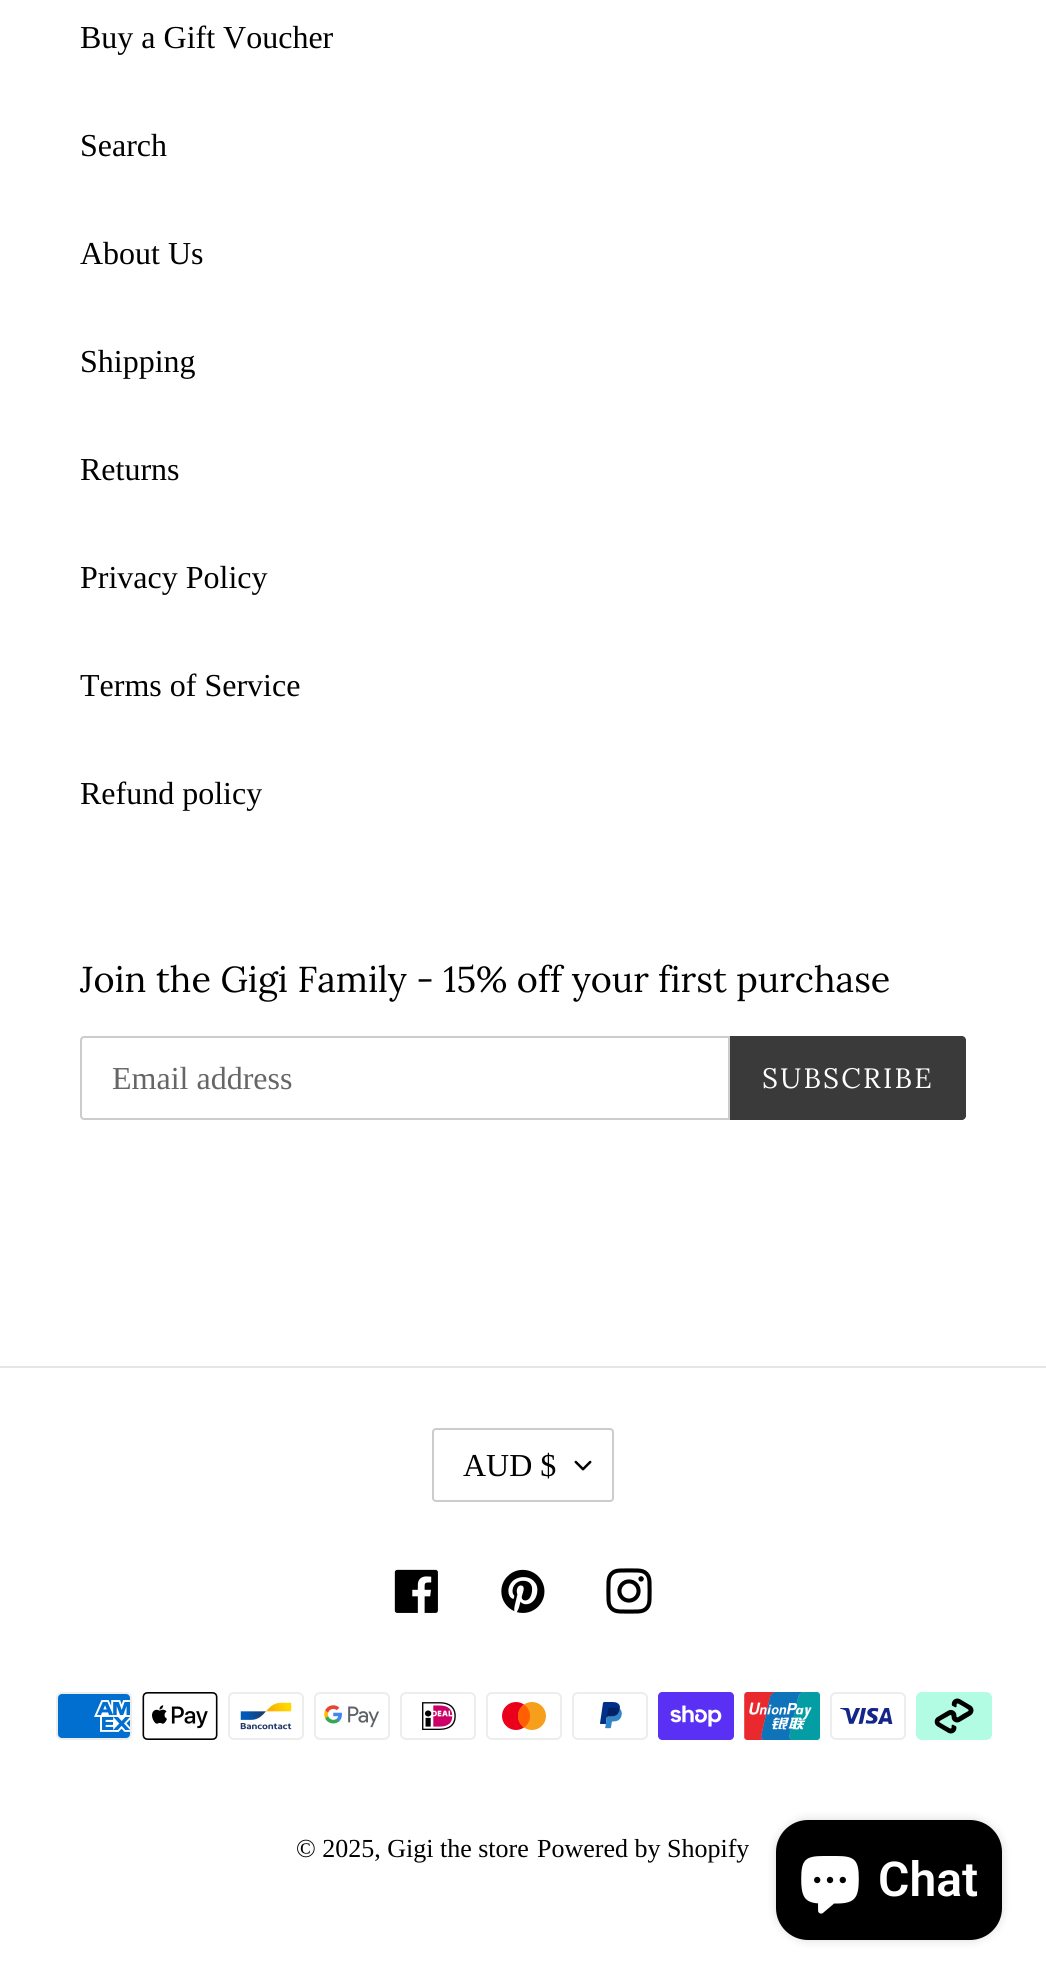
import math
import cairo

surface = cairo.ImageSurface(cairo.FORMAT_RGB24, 1046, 1982)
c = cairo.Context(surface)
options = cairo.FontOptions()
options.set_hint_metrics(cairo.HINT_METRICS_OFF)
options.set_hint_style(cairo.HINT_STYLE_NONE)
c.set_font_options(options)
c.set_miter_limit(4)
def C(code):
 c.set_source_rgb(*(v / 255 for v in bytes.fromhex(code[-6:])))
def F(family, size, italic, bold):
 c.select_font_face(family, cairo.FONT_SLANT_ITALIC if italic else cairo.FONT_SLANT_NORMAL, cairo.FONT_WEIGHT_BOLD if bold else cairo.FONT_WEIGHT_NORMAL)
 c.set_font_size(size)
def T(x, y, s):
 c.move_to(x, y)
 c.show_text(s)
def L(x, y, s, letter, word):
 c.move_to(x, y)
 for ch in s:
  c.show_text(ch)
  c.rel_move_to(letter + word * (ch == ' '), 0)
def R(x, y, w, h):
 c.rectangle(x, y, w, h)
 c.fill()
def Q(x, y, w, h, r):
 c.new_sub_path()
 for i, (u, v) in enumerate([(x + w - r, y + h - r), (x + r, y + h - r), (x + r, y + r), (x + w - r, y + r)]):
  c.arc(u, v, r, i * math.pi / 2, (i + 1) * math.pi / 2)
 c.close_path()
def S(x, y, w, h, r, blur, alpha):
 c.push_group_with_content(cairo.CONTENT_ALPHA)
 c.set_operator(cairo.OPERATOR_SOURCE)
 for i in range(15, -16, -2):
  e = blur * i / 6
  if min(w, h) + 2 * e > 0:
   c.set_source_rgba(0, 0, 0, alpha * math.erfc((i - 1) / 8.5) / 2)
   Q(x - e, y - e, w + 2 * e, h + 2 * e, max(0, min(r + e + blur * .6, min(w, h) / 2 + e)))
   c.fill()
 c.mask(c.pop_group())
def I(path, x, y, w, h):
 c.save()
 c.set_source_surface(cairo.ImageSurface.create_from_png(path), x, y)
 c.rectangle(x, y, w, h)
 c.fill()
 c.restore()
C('ffffff')
c.paint()
F('Liberation Serif',32,0,0)
C('000000')
T(80,48,'Buy a Gift Voucher')
T(80,156,'Search')
T(80,264,'About Us')
T(80,372,'Shipping')
T(80,480,'Returns')
T(80,588,'Privacy Policy')
T(80,696,'Terms of Service')
T(80,804,'Refund policy')
F('Lora',36,0,0)
T(80,992,'Join the Gigi Family - 15% off your first purchase')
c.new_path()
c.move_to(84,1037)
c.line_to(729,1037)
c.line_to(729,1119)
c.line_to(84,1119)
c.curve_to(82.5,1119,81,1117.5,81,1116)
c.line_to(81,1040)
c.curve_to(81,1038.5,82.5,1037,84,1037)
c.close_path()
C('cccccc')
c.stroke()
F('Liberation Serif',32,0,0)
C('666666')
T(112,1089,'Email address')
C('3a3a3a')
c.new_path()
c.move_to(730,1036)
c.line_to(962,1036)
c.curve_to(964,1036,966,1038,966,1040)
c.line_to(966,1116)
c.curve_to(966,1118,964,1120,962,1120)
c.line_to(730,1120)
c.close_path()
c.fill()
F('Lora',28,0,0)
C('ffffff')
L(762,1088,'SUBSCRIBE',2.25,0)
C('e6e6e6')
R(0,1366,1046,2)
I('1.png',574,1460,18,11)
Q(433,1429,180,72,3)
C('cccccc')
c.stroke()
F('Liberation Serif',32,0,0)
C('000000')
T(463,1476,'AUD $')
I('2.png',394,1569,44,44)
I('3.png',501,1569,44,44)
I('4.png',606,1568,46,46)
I('5.png',56,1692,76,48)
I('6.png',142,1692,76,48)
I('7.png',228,1692,76,48)
I('8.png',314,1692,76,48)
I('9.png',400,1692,76,48)
I('10.png',486,1692,76,48)
I('11.png',572,1692,76,48)
I('12.png',658,1692,76,48)
I('13.png',744,1692,76,48)
I('14.png',830,1692,76,48)
I('15.png',916,1692,76,48)
F('Liberation Serif',26,0,0)
T(296,1857,'© 2025, Gigi the store')
T(537,1857,'Powered by Shopify')
C('000000')
S(776,1820,226,120,32,5,.15)
C('000000')
Q(776,1820,226,120,32)
c.fill()
I('16.png',801,1856,58,58)
F('Roboto SemiBold',48,0,0)
C('ffffff')
T(878,1896,'Chat')
surface.write_to_png('o.png')
